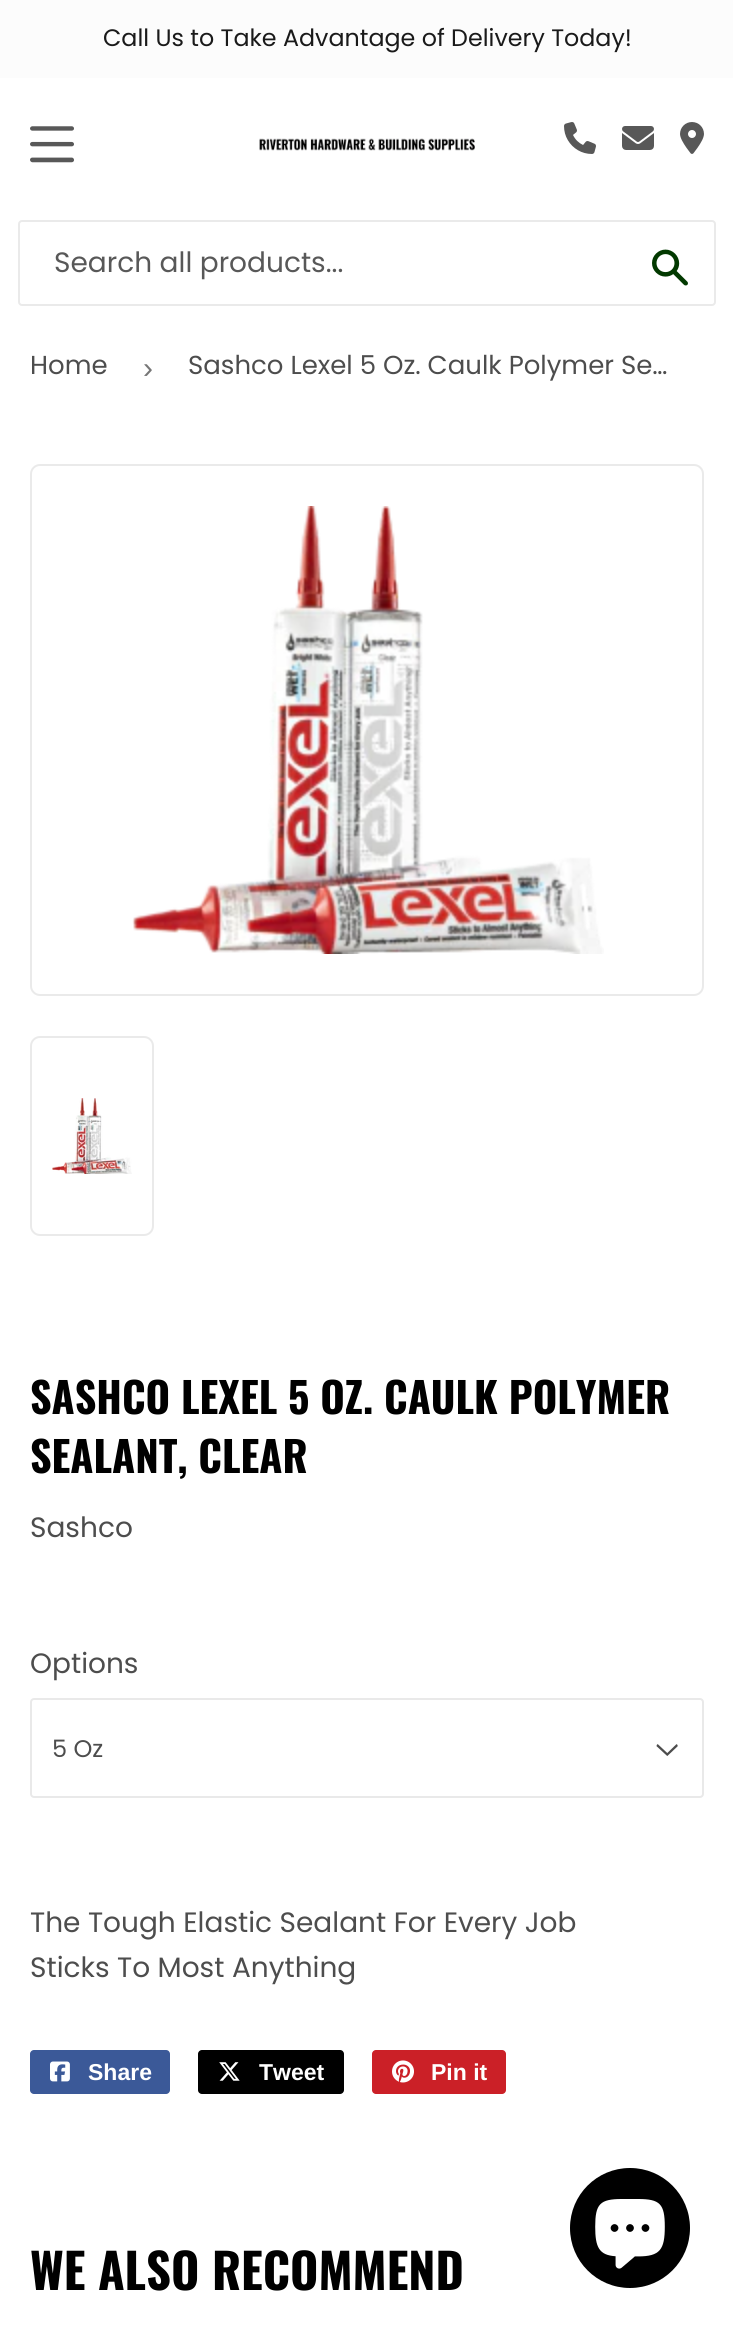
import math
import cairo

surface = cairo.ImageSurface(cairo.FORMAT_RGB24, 733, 2330)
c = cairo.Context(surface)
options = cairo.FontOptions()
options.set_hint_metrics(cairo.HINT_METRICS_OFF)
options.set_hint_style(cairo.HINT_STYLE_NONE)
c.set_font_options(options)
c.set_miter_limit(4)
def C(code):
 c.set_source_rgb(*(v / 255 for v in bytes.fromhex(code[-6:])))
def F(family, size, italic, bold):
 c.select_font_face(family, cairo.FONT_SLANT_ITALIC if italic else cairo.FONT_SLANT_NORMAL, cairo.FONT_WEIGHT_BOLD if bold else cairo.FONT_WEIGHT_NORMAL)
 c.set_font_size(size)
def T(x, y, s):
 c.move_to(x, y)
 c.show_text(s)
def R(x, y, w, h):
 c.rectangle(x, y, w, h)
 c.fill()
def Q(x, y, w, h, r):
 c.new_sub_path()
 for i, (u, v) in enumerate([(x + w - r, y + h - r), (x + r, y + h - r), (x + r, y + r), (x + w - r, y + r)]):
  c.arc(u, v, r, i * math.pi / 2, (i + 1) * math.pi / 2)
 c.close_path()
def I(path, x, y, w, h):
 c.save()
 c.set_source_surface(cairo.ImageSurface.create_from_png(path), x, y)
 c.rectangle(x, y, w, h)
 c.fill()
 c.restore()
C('ffffff')
c.paint()
C('fcfcfc')
R(0,0,733,78)
F('Poppins',23.8,0,0)
C('1a1a1a')
T(103,46,'Call Us to Take Advantage of Delivery Today!')
I('1.png',30,126,44,37)
I('2.png',259,138,216,13)
I('3.png',564,122,32,32)
I('4.png',622,126,32,24)
I('5.png',680,122,24,32)
Q(19,221,696,84,3)
C('eaeaea')
c.stroke()
F('Poppins',28,0,0)
C('585858')
T(54,272,'Search all products...')
I('6.png',652,249,36,37)
F('Poppins',26,0,0)
C('4d4d4d')
T(30,374,'Home')
F('Liberation Sans',30,0,0)
C('767676')
T(143,378,'›')
F('Poppins',26,0,0)
C('4d4d4d')
T(188,374,'Sashco Lexel 5 Oz. Caulk Polymer Se…')
Q(31,465,672,530,9)
C('eaeaea')
c.stroke()
I('7.png',132,506,472,448)
Q(31,1037,122,198,9)
c.stroke()
I('8.png',52,1098,80,76)
F('Oswald',42,0,1)
C('000000')
T(30,1414,'SASHCO LEXEL 5 OZ. CAULK POLYMER')
T(30,1473,'SEALANT, CLEAR')
F('Poppins',28,0,0)
C('4d4d4d')
T(30,1537,'Sashco')
T(30,1673,'Options')
I('9.png',656,1744,22,12)
Q(31,1699,672,98,3)
C('e9e9e9')
c.stroke()
F('Poppins',24,0,0)
C('4d4d4d')
T(52,1757,'5 Oz')
F('Poppins',28,0,0)
T(30,1932,'The Tough Elastic Sealant For Every Job')
T(30,1977,'Sticks To Most Anything')
C('3b5998')
Q(30,2050,140,44,4)
c.fill()
I('10.png',50,2061,20,21)
F('Liberation Sans',23,0,1)
C('ffffff')
T(88,2080,'Share')
C('000000')
Q(198,2050,146,44,4)
c.fill()
I('11.png',219,2062,21,19)
C('ffffff')
T(259,2080,'Tweet')
C('cb2027')
Q(372,2050,134,44,4)
c.fill()
I('12.png',392,2060,22,23)
C('ffffff')
T(431,2080,'Pin it')
F('Oswald',48.5,0,1)
C('000000')
T(30,2290,'WE ALSO RECOMMEND')
c.new_path()
c.arc(630,2228,60,0,2 * math.pi)
c.fill()
I('13.png',595,2199,70,70)
surface.write_to_png('o.png')
